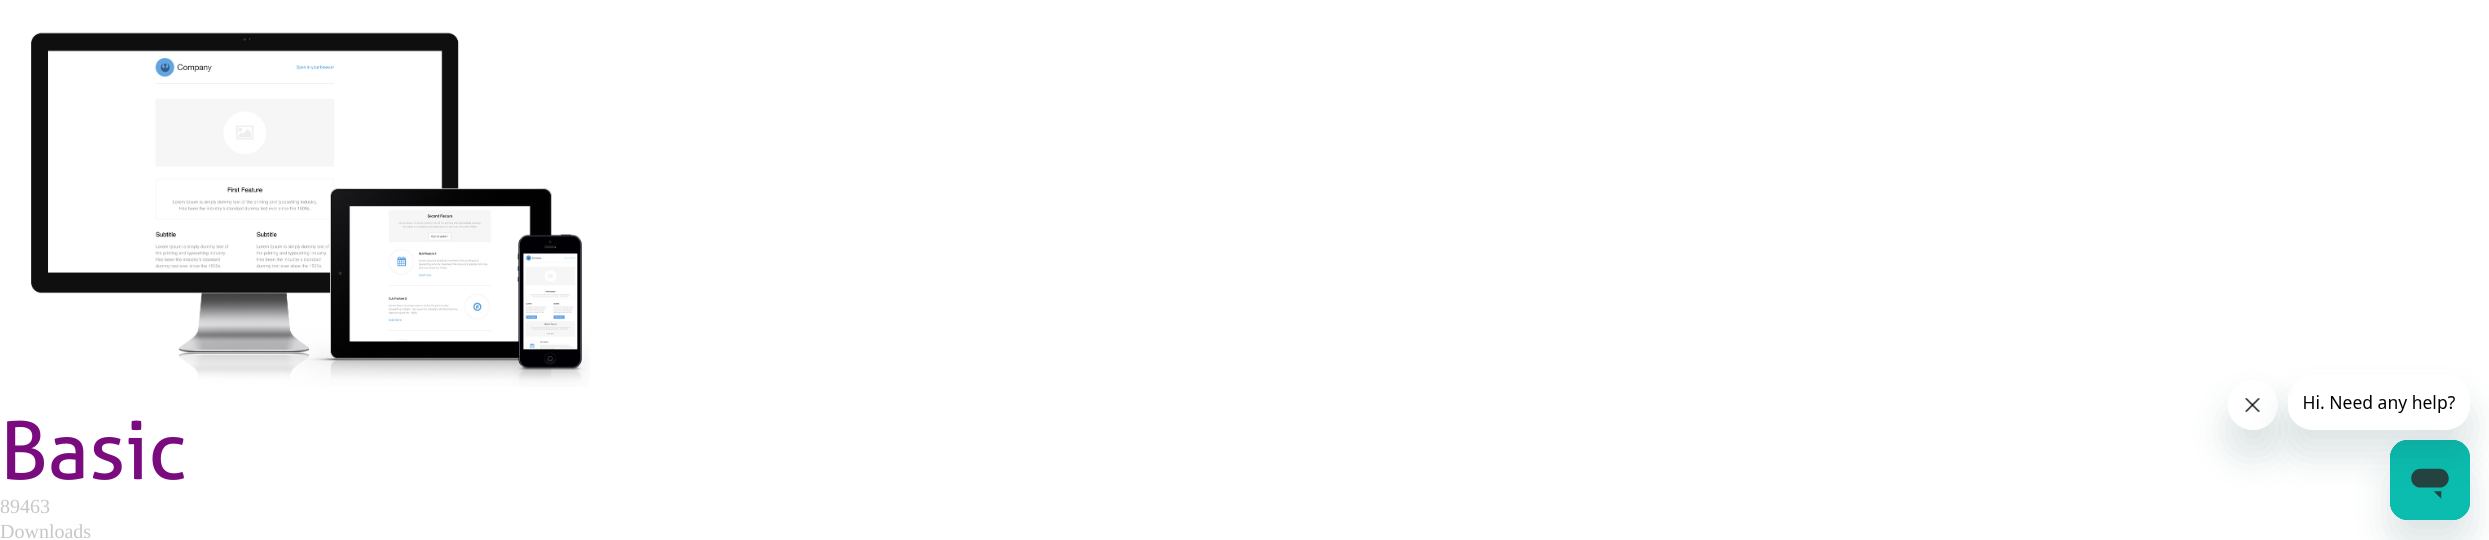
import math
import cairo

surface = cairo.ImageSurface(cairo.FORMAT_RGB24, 2489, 540)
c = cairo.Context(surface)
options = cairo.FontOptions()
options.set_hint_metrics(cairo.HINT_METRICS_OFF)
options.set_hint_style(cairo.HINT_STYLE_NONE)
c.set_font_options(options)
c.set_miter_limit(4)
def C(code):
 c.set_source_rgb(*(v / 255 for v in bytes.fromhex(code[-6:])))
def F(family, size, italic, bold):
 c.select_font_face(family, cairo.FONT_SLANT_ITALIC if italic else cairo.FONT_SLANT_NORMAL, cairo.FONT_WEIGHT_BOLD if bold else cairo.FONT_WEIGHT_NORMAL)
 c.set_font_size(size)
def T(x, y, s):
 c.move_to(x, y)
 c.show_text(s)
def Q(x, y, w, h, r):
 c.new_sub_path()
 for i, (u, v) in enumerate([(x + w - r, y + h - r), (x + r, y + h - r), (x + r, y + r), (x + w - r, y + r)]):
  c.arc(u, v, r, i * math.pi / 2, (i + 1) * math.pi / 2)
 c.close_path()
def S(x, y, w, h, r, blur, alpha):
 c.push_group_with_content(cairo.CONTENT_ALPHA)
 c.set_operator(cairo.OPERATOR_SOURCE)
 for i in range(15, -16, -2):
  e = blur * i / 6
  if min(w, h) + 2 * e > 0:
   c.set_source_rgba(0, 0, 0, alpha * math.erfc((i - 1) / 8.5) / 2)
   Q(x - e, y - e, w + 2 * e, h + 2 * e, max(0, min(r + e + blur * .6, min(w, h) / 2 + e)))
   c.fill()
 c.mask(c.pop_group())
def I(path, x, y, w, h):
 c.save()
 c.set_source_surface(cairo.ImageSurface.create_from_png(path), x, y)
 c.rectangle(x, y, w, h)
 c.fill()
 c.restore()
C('ffffff')
c.paint()
I('1.png',31,32,559,355)
F('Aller',80,0,0)
C('790b7e')
T(0,479,'Basic')
F('Liberation Serif',20,0,0)
C('c7c7c7')
T(0,513,'89463')
T(0,538,'Downloads')
c.save()
c.set_fill_rule(cairo.FILL_RULE_EVEN_ODD)
c.new_path()
c.move_to(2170,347)
c.line_to(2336,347)
c.line_to(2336,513)
c.line_to(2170,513)
c.close_path()
c.move_to(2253,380)
c.curve_to(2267,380,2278,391,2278,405)
c.curve_to(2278,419,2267,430,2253,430)
c.curve_to(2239,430,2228,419,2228,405)
c.curve_to(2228,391,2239,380,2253,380)
c.close_path()
c.clip()
C('17494d')
S(2228,405,50,50,25,19,.15)
c.restore()
I('3.png',2245,398,15,14)
C('17494d')
S(2390,465,80,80,18,19,.15)
I('4.png',2390,440,80,80)
c.save()
c.set_fill_rule(cairo.FILL_RULE_EVEN_ODD)
c.new_path()
c.move_to(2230,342)
c.line_to(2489,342)
c.line_to(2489,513)
c.line_to(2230,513)
c.close_path()
c.move_to(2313,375)
c.line_to(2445,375)
c.curve_to(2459,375,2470,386,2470,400)
c.line_to(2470,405)
c.curve_to(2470,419,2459,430,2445,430)
c.line_to(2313,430)
c.curve_to(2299,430,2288,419,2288,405)
c.line_to(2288,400)
c.curve_to(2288,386,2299,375,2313,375)
c.close_path()
c.clip()
S(2288,400,182,55,25,19,.15)
c.restore()
I('2.png',2288,395,167,31)
surface.write_to_png('o.png')
